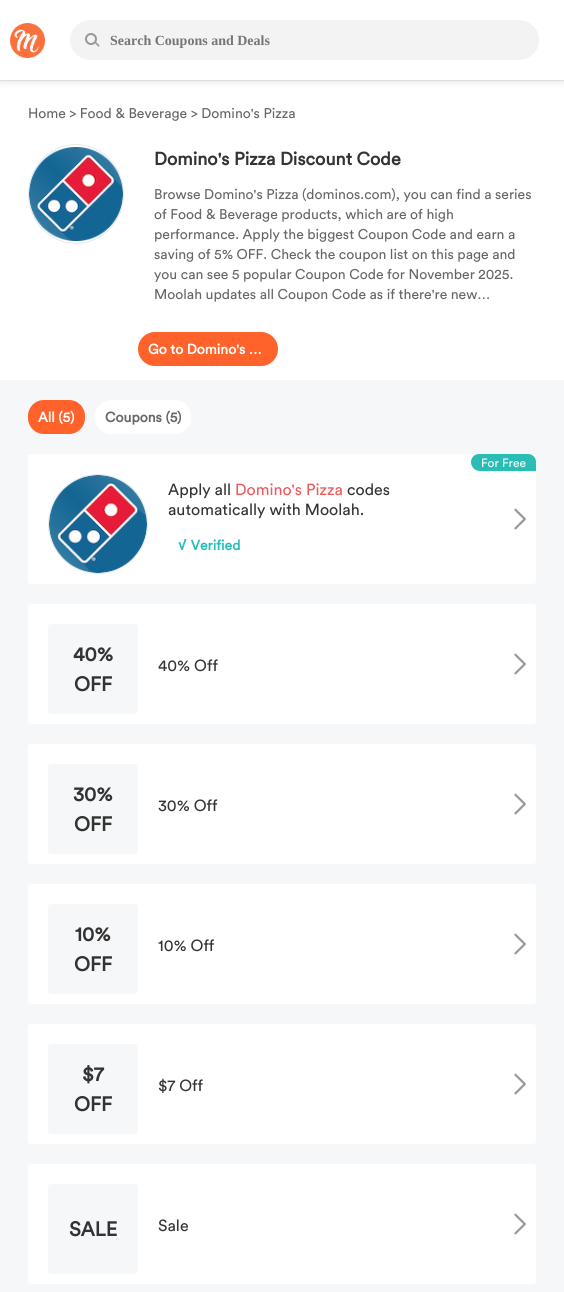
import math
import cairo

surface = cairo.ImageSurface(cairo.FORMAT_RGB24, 564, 1292)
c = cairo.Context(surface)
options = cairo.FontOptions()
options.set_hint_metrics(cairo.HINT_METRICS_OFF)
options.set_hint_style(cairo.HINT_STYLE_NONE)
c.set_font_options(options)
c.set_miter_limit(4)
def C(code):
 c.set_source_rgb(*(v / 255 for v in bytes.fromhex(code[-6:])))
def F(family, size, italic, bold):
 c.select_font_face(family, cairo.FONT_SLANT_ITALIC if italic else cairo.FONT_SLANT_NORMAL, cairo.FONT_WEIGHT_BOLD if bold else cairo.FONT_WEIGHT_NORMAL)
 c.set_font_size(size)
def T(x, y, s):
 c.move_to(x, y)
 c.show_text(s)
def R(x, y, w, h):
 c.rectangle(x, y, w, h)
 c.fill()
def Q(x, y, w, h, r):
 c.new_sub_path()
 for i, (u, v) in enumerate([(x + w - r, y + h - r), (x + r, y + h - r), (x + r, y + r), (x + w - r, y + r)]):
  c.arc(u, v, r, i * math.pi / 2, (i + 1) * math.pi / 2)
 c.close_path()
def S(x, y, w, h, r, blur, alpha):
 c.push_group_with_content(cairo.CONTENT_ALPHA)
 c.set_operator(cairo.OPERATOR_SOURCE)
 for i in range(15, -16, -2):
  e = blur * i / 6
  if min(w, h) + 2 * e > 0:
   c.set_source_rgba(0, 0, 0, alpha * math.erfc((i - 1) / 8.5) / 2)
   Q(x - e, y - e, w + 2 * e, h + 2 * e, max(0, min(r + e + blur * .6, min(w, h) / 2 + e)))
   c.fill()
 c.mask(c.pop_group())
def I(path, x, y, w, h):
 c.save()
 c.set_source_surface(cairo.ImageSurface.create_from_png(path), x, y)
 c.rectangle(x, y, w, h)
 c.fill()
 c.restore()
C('f6f7f8')
c.paint()
C('ffffff')
R(0,81,564,299)
C('dedede')
S(0,1,564,80,0,4,1)
C('ffffff')
R(0,0,564,80)
C('dedede')
R(0,80,564,1)
I('1.png',10,23,35,35)
C('f3f3f4')
Q(70,20,469,40,20)
c.fill()
I('2.png',85,33,15,14)
F('Liberation Serif',14,0,1)
C('757575')
T(110,45,'Search Coupons and Deals')
F('Circular',14,0,0)
C('666666')
T(28,118,'Home > Food & Beverage')
T(191,118,'> Domino\'s Pizza')
c.new_path()
c.move_to(76,144.5)
c.curve_to(102,144.5,123.5,166.5,123.5,194)
c.curve_to(123.5,221.5,102,243.5,76,243.5)
c.curve_to(50,243.5,28.5,221.5,28.5,194)
c.curve_to(28.5,166.5,50,144.5,76,144.5)
c.close_path()
C('e9e9e9')
c.set_line_width(1)
c.stroke()
I('3.png',29,147,94,94)
F('Circular',18,0,1)
C('333333')
T(154,165,'Domino\'s Pizza Discount Code')
F('Circular',14,0,0)
C('666666')
T(154,199,'Browse Domino\'s Pizza (dominos.com), you can find a series')
T(154,219,'of Food & Beverage products, which are of high')
T(154,239,'performance. Apply the biggest Coupon Code and earn a')
T(154,259,'saving of 5% OFF. Check the coupon list on this page and')
T(154,279,'you can see 5 popular Coupon Code for November 2025.')
T(154,299,'Moolah updates all Coupon Code as if there\'re new…')
C('ff622a')
Q(138,332,140,34,17)
c.fill()
F('Circular',14,0,1)
C('ffffff')
T(148,354,'Go to Domino\'s …')
C('ff622a')
Q(28,400,57,34,16)
c.fill()
C('ffffff')
T(38,422,'All (5)')
Q(95,400,96,34,16)
c.fill()
C('666666')
T(105,422,'Coupons (5)')
C('ffffff')
Q(28,454,508,130,3)
c.fill()
C('2abdb5')
c.new_path()
c.move_to(479,454)
c.line_to(528,454)
c.curve_to(532.5,454,536,457.5,536,462)
c.line_to(536,471)
c.line_to(480,471)
c.curve_to(475,471,471,467,471,462)
c.curve_to(471,457.5,474.5,454,479,454)
c.close_path()
c.fill()
F('Circular',12,0,0)
C('ffffff')
T(481,467,'For Free')
c.new_path()
c.arc(98,524,49.5,0,2 * math.pi)
C('e9e9e9')
c.stroke()
I('4.png',49,475,98,98)
F('Circular',16,0,0)
C('333333')
T(168,495,'Apply all')
C('f0585a')
T(235,495,'Domino\'s Pizza')
C('333333')
T(347,495,'codes')
T(168,515,'automatically with Moolah.')
c.save()
c.rectangle(168,539,306,13)
c.clip()
F('Circular',14,0,1)
C('2abdb5')
T(178,550,'√ Verified')
c.restore()
I('5.png',514,508,12,22)
C('ffffff')
Q(28,604,508,120,3)
c.fill()
C('f6f7f8')
Q(48,624,90,90,3)
c.fill()
F('Circular',20,0,1)
C('333333')
T(73,661,'40%')
T(74,691,'OFF')
F('Circular',16,0,0)
T(158,671,'40% Off')
I('5.png',514,653,12,22)
C('ffffff')
Q(28,744,508,120,3)
c.fill()
C('f6f7f8')
Q(48,764,90,90,3)
c.fill()
F('Circular',20,0,1)
C('333333')
T(73,801,'30%')
T(74,831,'OFF')
F('Circular',16,0,0)
T(158,811,'30% Off')
I('5.png',514,793,12,22)
C('ffffff')
Q(28,884,508,120,3)
c.fill()
C('f6f7f8')
Q(48,904,90,90,3)
c.fill()
F('Circular',20,0,1)
C('333333')
T(75,941,'10%')
T(74,971,'OFF')
F('Circular',16,0,0)
T(158,951,'10% Off')
I('5.png',514,933,12,22)
C('ffffff')
Q(28,1024,508,120,3)
c.fill()
C('f6f7f8')
Q(48,1044,90,90,3)
c.fill()
F('Circular',20,0,1)
C('333333')
T(82,1081,'$7')
T(74,1111,'OFF')
F('Circular',16,0,0)
T(158,1091,'$7 Off')
I('5.png',514,1073,12,22)
C('ffffff')
Q(28,1164,508,120,3)
c.fill()
C('f6f7f8')
Q(48,1184,90,90,3)
c.fill()
F('Circular',20,0,1)
C('333333')
T(69,1236,'SALE')
F('Circular',16,0,0)
T(158,1231,'Sale')
I('5.png',514,1213,12,22)
surface.write_to_png('o.png')
